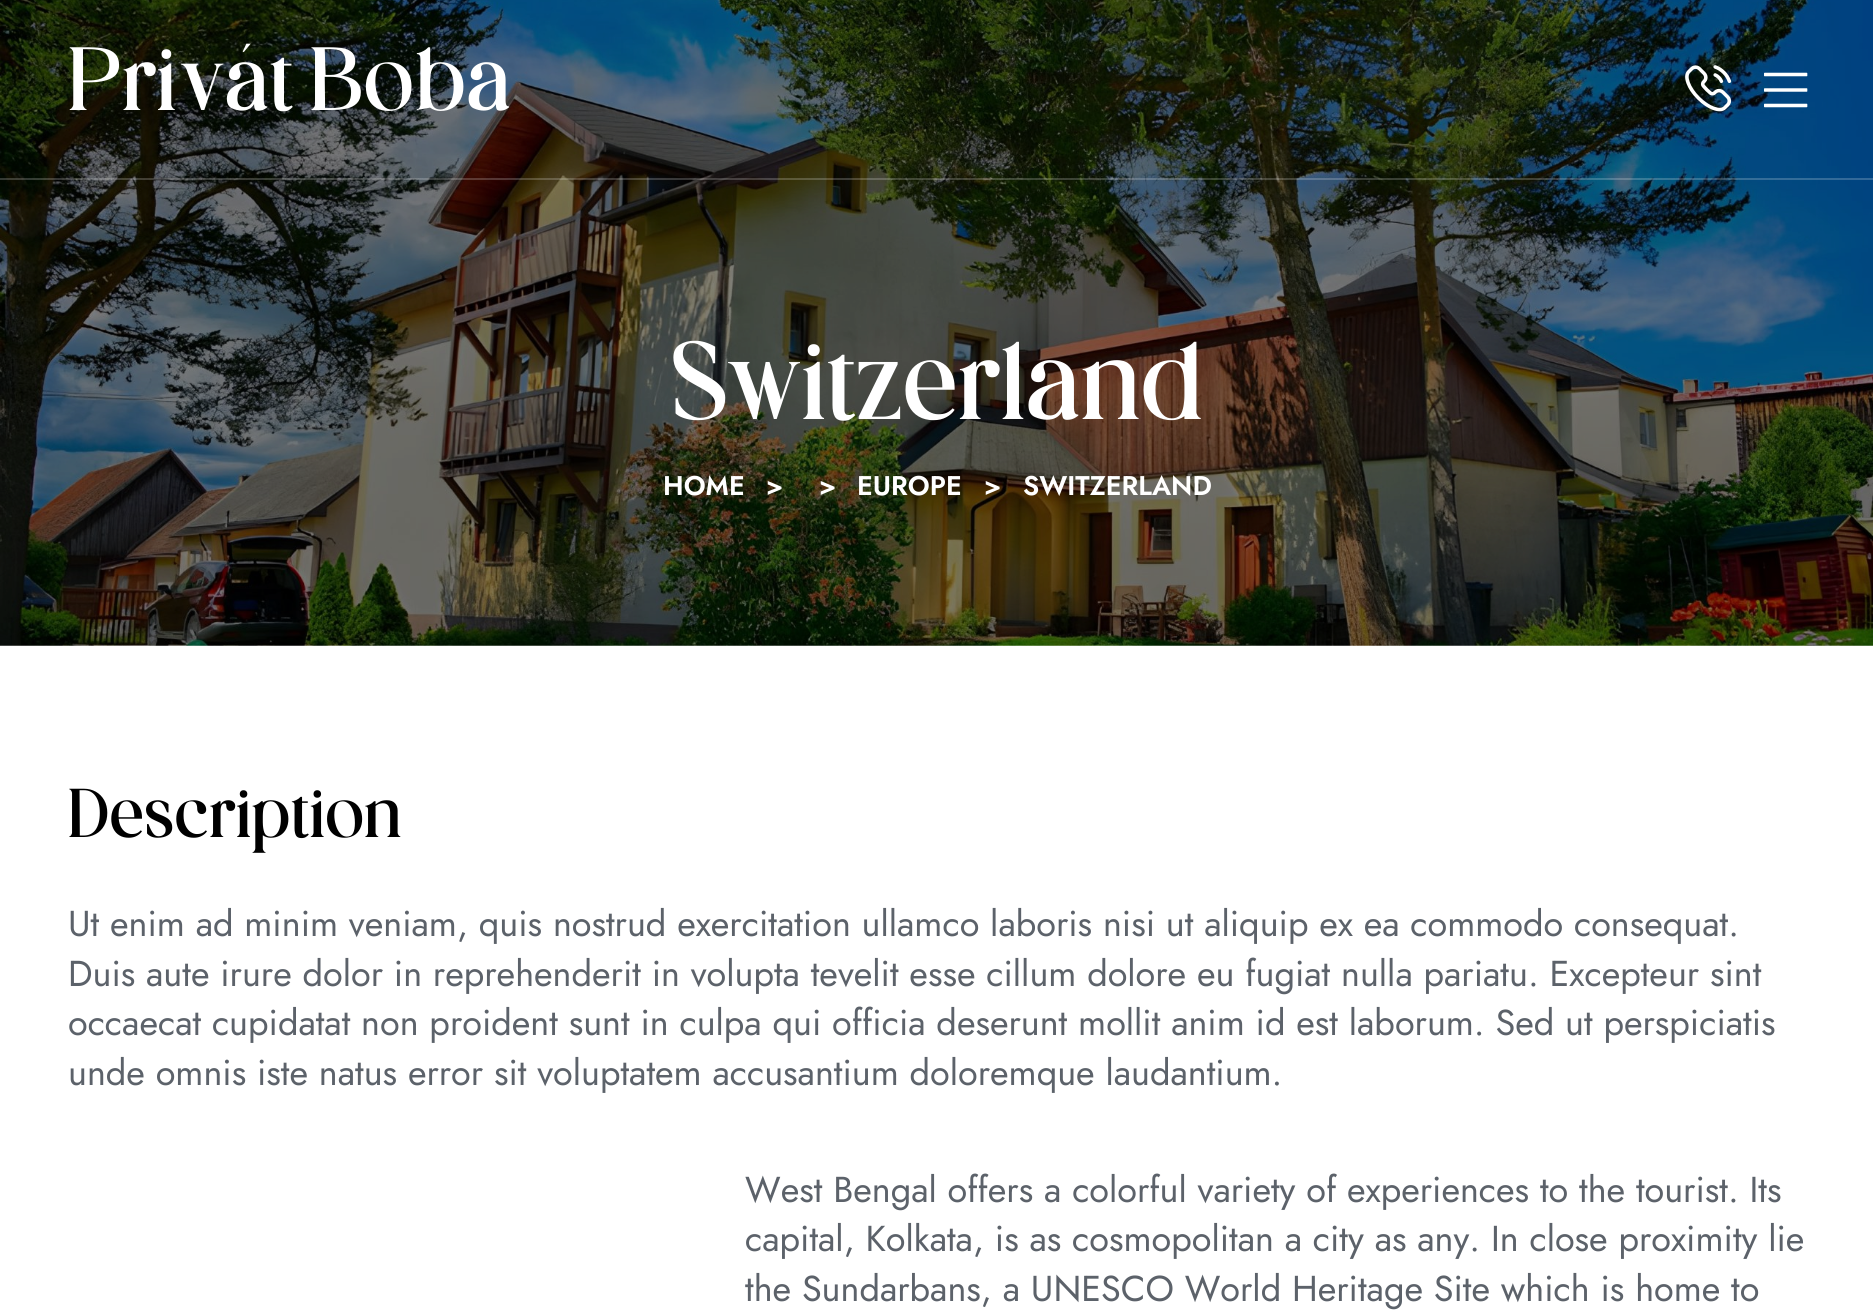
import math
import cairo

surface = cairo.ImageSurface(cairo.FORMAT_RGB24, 1873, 1314)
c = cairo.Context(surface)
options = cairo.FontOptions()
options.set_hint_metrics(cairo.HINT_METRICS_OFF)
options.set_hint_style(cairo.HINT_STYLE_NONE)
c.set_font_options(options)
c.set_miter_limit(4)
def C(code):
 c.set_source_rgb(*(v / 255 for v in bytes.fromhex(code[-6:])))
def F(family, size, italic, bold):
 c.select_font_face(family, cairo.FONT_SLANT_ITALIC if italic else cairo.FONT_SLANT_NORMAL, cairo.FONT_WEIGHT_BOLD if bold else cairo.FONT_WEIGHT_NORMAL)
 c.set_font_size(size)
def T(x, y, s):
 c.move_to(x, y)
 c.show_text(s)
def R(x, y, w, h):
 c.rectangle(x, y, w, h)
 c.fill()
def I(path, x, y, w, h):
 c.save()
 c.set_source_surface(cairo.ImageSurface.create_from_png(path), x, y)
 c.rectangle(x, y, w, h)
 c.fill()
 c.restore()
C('ffffff')
c.paint()
I('3.png',0,0,1873,646)
c.set_source_rgba(1,1,1,0.2)
R(0,178,1873,2)
F('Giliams',87.75,0,0)
C('ffffff')
T(68,110,'Privát Boba')
I('1.png',1685,65,47,47)
I('2.png',1764,72,44,36)
F('Giliams',108,0,0)
T(671,419,'Switzerland')
F('Jost SemiBold',27,0,0)
T(663,495,'HOME')
T(766,495,'>')
T(819,495,'>')
T(857,495,'EUROPE')
T(984,495,'>')
T(1023,495,'SWITZERLAND')
F('Giliams',67.5,0,0)
C('000000')
T(68,837,'Description')
F('Jost',36,0,0)
C('5c626a')
T(68,936,'Ut enim ad minim veniam, quis nostrud exercitation ullamco laboris nisi ut aliquip ex ea commodo consequat.')
T(68,986,'Duis aute irure dolor in reprehenderit in volupta tevelit esse cillum dolore eu fugiat nulla pariatu. Excepteur sint')
T(68,1035,'occaecat cupidatat non proident sunt in culpa qui officia deserunt mollit anim id est laborum. Sed ut perspiciatis')
T(68,1085,'unde omnis iste natus error sit voluptatem accusantium doloremque laudantium.')
T(745,1202,'West Bengal offers a colorful variety of experiences to the tourist. Its')
T(745,1251,'capital, Kolkata, is as cosmopolitan a city as any. In close proximity lie')
T(745,1301,'the Sundarbans, a UNESCO World Heritage Site which is home to')
surface.write_to_png('o.png')
